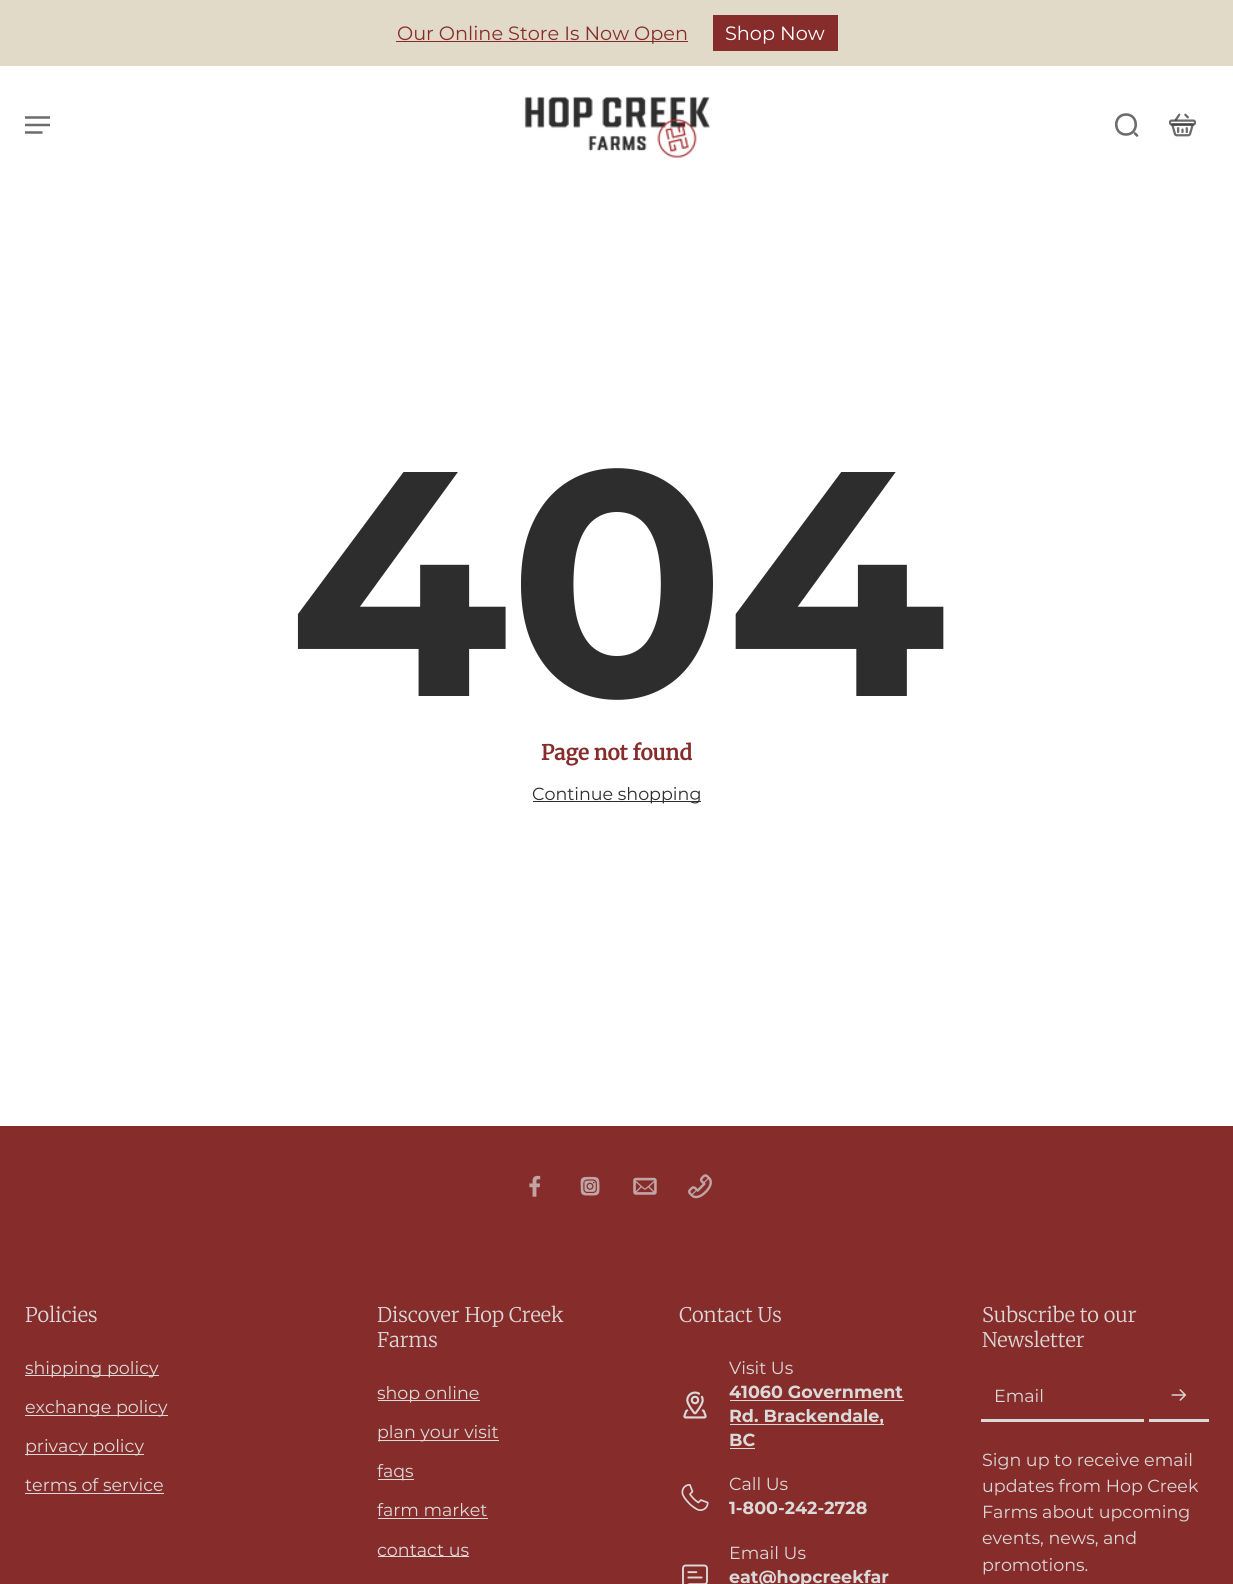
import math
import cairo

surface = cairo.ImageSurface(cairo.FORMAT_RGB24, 1233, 1584)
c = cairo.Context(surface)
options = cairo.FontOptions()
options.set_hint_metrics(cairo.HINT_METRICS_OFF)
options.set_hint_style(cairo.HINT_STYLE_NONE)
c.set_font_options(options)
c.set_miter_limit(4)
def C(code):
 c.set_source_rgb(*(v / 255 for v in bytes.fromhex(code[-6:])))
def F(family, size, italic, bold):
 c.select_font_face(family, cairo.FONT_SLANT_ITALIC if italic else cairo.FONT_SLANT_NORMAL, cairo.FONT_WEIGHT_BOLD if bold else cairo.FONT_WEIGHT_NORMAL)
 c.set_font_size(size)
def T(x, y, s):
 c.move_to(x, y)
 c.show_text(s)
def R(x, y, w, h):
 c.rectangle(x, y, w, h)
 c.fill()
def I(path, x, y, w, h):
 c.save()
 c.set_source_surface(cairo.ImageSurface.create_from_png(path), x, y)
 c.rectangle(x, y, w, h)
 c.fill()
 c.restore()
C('ffffff')
c.paint()
C('e1dac9')
R(0,0,1233,66)
C('862d2c')
R(396,41,292,1)
F('Montserrat',19.25,0,0)
T(397,40,'Our Online Store Is Now Open')
R(713,15,125,36)
C('ffffff')
T(725,40,'Shop Now')
I('1.png',25,116,25,18)
I('2.png',524,96,187,62)
c.new_path()
c.move_to(1126,134.5)
c.curve_to(1139,134.5,1139,114.5,1126,114.5)
c.curve_to(1113,114.5,1113,134.5,1126,134.5)
c.close_path()
c.move_to(1137,135.5)
c.line_to(1135,133.5)
C('6c6c6c')
c.set_line_width(2.6)
c.set_line_cap(cairo.LINE_CAP_ROUND)
c.set_line_join(cairo.LINE_JOIN_ROUND)
c.stroke()
I('3.png',1169,113,27,24)
F('Montserrat',320,0,1)
C('2d2d2d')
T(288,696,'404')
F('Merriweather',20.75,0,1)
C('862d2c')
T(541,760,'Page not found')
C('2d2d2d')
R(533,801,168,1)
F('Montserrat',17.5,0,0)
T(532,800,'Continue shopping')
C('862d2c')
R(0,1126,1233,458)
I('4.png',529,1175,12,22)
I('5.png',580,1176,20,20)
I('6.png',633,1177,24,18)
I('7.png',688,1174,24,25)
F('Merriweather Light',20.1,0,0)
C('dad9d8')
T(25,1322,'Policies')
R(25,1375,134,1)
F('Montserrat',17.5,0,0)
T(25,1374,'shipping policy')
R(25,1415,143,1)
T(25,1413,'exchange policy')
R(25,1454,119,1)
T(25,1452,'privacy policy')
T(25,1491,'terms of service')
R(25,1493,139,1)
F('Merriweather Light',20.1,0,0)
T(377,1322,'Discover Hop Creek')
T(377,1347,'Farms')
R(378,1400,102,1)
F('Montserrat',17.5,0,0)
T(377,1399,'shop online')
R(378,1440,121,1)
T(377,1438,'plan your visit')
R(378,1479,36,1)
T(377,1477,'faqs')
T(377,1516,'farm market')
R(378,1518,110,1)
R(378,1556,91,1)
T(377,1556,'contact us')
F('Merriweather Light',20.1,0,0)
T(679,1322,'Contact Us')
I('8.png',683,1391,24,28)
F('Montserrat',17.5,0,0)
T(729,1374,'Visit Us')
F('Montserrat',17.5,0,1)
T(729,1398,'41060 Government')
R(730,1400,174,1)
R(730,1424,154,1)
T(729,1422,'Rd. Brackendale,')
T(729,1446,'BC')
R(730,1448,25,1)
I('9.png',681,1484,28,27)
F('Montserrat',17.5,0,0)
T(729,1490,'Call Us')
F('Montserrat',17.5,0,1)
T(729,1514,'1-800-242-2728')
I('10.png',682,1564,26,20)
F('Montserrat',17.5,0,0)
T(729,1559,'Email Us')
F('Montserrat',17.5,0,1)
T(729,1583,'eat@hopcreekfar')
F('Merriweather Light',20.1,0,0)
T(982,1322,'Subscribe to our')
T(982,1347,'Newsletter')
F('Montserrat',17.5,0,0)
T(994,1402,'Email')
R(981,1419,163,3)
R(1149,1419,60,3)
I('11.png',1171,1389,15,12)
T(982,1466,'Sign up to receive email')
T(982,1492,'updates from Hop Creek')
T(982,1518,'Farms about upcoming')
T(982,1544,'events, news, and')
T(982,1571,'promotions.')
surface.write_to_png('o.png')
